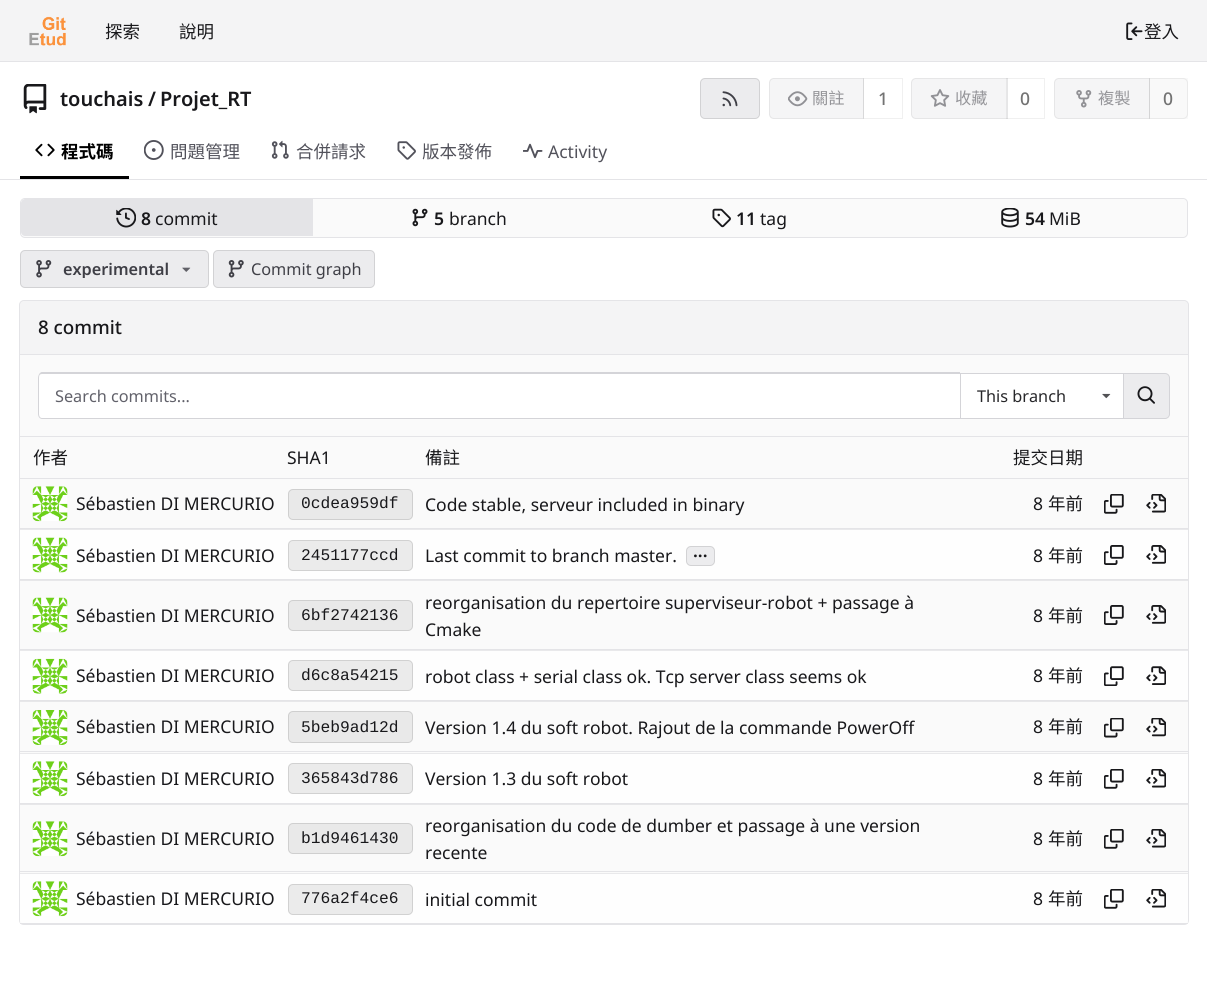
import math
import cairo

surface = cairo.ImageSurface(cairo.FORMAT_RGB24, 1207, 1003)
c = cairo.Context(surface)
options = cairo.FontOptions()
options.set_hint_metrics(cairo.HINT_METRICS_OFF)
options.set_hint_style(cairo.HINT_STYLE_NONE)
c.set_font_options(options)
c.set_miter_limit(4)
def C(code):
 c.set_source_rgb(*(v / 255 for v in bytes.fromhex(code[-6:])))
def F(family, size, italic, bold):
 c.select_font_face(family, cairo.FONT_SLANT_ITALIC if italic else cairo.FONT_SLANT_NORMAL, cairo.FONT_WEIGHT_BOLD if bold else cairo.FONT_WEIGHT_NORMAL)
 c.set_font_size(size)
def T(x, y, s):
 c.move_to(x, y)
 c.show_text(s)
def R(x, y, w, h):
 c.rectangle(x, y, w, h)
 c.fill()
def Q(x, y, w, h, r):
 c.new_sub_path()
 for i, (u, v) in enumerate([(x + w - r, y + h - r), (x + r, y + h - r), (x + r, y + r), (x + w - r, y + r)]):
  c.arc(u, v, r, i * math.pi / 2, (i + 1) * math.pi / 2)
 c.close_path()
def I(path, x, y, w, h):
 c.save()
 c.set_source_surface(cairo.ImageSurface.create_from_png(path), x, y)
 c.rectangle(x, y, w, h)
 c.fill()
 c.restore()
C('ffffff')
c.paint()
C('f4f4f5')
R(0,0,1207,61)
C('e4e4e7')
R(0,61,1207,1)
I('1.png',29,16,37,30)
F('Noto Sans CJK HK',17.5,0,0)
C('18181b')
T(105,38,'探索')
T(179,38,'說明')
I('2.png',1126,22,17,18)
T(1144,38,'登入')
I('3.png',23,84,24,30)
F('Noto Sans SemiBold',20,0,0)
T(60,106,'touchais')
T(148,106,'/')
T(160,106,'Projet_RT')
C('ececee')
Q(700,78,60,41,5)
c.fill()
Q(700.5,78.5,59,40,4.5)
c.set_source_rgba(0,0,0,0.11)
c.set_line_width(1)
c.stroke()
I('4.png',722,91,16,16)
C('f5f5f6')
c.new_path()
c.move_to(774,78)
c.line_to(864,78)
c.line_to(864,119)
c.line_to(774,119)
c.curve_to(771,119,769,117,769,114)
c.line_to(769,83)
c.curve_to(769,80,771,78,774,78)
c.close_path()
c.fill()
c.new_path()
c.move_to(774,78.5)
c.line_to(863.5,78.5)
c.line_to(863.5,118.5)
c.line_to(774,118.5)
c.curve_to(771.5,118.5,769.5,116.5,769.5,114)
c.line_to(769.5,83)
c.curve_to(769.5,80.5,771.5,78.5,774,78.5)
c.close_path()
c.set_source_rgba(0.451,0.451,0.451,0.11)
c.stroke()
I('5.png',788,91,20,16)
F('Noto Sans CJK HK',16.25,0,0)
C('959599')
T(812,104,'關註')
c.rectangle(863.5,78.5,39,40)
c.set_source_rgba(0,0,0,0.06)
c.stroke()
F('Noto Sans Medium',17.5,0,0)
C('737373')
T(878,105,'1')
C('f5f5f6')
c.new_path()
c.move_to(916,78)
c.line_to(1008,78)
c.line_to(1008,119)
c.line_to(916,119)
c.curve_to(913,119,911,117,911,114)
c.line_to(911,83)
c.curve_to(911,80,913,78,916,78)
c.close_path()
c.fill()
c.new_path()
c.move_to(916,78.5)
c.line_to(1007.5,78.5)
c.line_to(1007.5,118.5)
c.line_to(916,118.5)
c.curve_to(913.5,118.5,911.5,116.5,911.5,114)
c.line_to(911.5,83)
c.curve_to(911.5,80.5,913.5,78.5,916,78.5)
c.close_path()
c.set_source_rgba(0.451,0.451,0.451,0.11)
c.stroke()
I('6.png',930,89,20,18)
F('Noto Sans CJK HK',16.25,0,0)
C('959599')
T(955,104,'收藏')
c.rectangle(1006.5,78.5,38,40)
c.set_source_rgba(0,0,0,0.06)
c.stroke()
F('Noto Sans Medium',17.5,0,0)
C('737373')
T(1020,105,'0')
C('f5f5f6')
c.new_path()
c.move_to(1059,78)
c.line_to(1150,78)
c.line_to(1150,119)
c.line_to(1059,119)
c.curve_to(1056,119,1054,117,1054,114)
c.line_to(1054,83)
c.curve_to(1054,80,1056,78,1059,78)
c.close_path()
c.fill()
c.new_path()
c.move_to(1059,78.5)
c.line_to(1149.5,78.5)
c.line_to(1149.5,118.5)
c.line_to(1059,118.5)
c.curve_to(1056.5,118.5,1054.5,116.5,1054.5,114)
c.line_to(1054.5,83)
c.curve_to(1054.5,80.5,1056.5,78.5,1059,78.5)
c.close_path()
c.set_source_rgba(0.451,0.451,0.451,0.11)
c.stroke()
I('7.png',1076,90,16,18)
F('Noto Sans CJK HK',16.25,0,0)
C('959599')
T(1098,104,'複製')
c.set_source_rgba(0.451,0.451,0.451,0.04)
R(1149,78,39,41)
c.new_path()
c.move_to(1149.5,78.5)
c.line_to(1183,78.5)
c.curve_to(1185.5,78.5,1187.5,80.5,1187.5,83)
c.line_to(1187.5,114)
c.curve_to(1187.5,116.5,1185.5,118.5,1183,118.5)
c.line_to(1149.5,118.5)
c.close_path()
c.set_source_rgba(0.451,0.451,0.451,0.11)
c.stroke()
F('Noto Sans Medium',17.5,0,0)
C('737373')
T(1163,105,'0')
C('000000')
R(20,176,109,3)
I('8.png',35,143,20,14)
F('Noto Sans CJK HK',17.5,0,1)
T(61,158,'程式碼')
I('9.png',144,140,20,20)
F('Noto Sans CJK HK',17.5,0,0)
C('52525b')
T(170,158,'問題管理')
I('10.png',271,140,18,19)
T(296,158,'合併請求')
I('11.png',397,141,19,19)
T(422,158,'版本發佈')
I('12.png',523,143,20,16)
F('Noto Sans',17.5,0,0)
T(548,158,'Activity')
C('e4e4e7')
R(0,179,1207,1)
C('fafafa')
Q(20.5,198.5,1167,39,4.5)
c.fill_preserve()
C('e4e4e7')
c.stroke()
C('fafafa')
Q(21,199,1165,37,4)
c.fill()
C('e4e4e7')
c.new_path()
c.move_to(25,199)
c.line_to(313,199)
c.line_to(313,236)
c.line_to(25,236)
c.curve_to(23,236,21,234,21,232)
c.line_to(21,203)
c.curve_to(21,201,23,199,25,199)
c.close_path()
c.fill()
I('13.png',116,208,20,20)
F('Noto Sans SemiBold',17.5,0,0)
C('18181b')
T(141,225,'8')
F('Noto Sans',17.5,0,0)
T(155,225,'commit')
I('14.png',412,208,16,19)
F('Noto Sans SemiBold',17.5,0,0)
T(434,225,'5')
F('Noto Sans',17.5,0,0)
T(449,225,'branch')
I('15.png',712,208,19,20)
F('Noto Sans SemiBold',17.5,0,0)
T(736,225,'11')
F('Noto Sans',17.5,0,0)
T(760,225,'tag')
I('16.png',1001,208,18,20)
F('Noto Sans SemiBold',17.5,0,0)
T(1025,225,'54')
F('Noto Sans',17.5,0,0)
T(1049,225,'MiB')
C('ececee')
Q(20,250,189,38,5)
c.fill()
Q(20.5,250.5,188,37,4.5)
c.set_source_rgba(0,0,0,0.11)
c.stroke()
I('17.png',36,260,16,18)
c.save()
c.rectangle(63,261,106,17)
c.clip()
F('Noto Sans SemiBold',16.25,0,0)
C('3f3f46')
T(63,275,'experimental')
c.restore()
I('18.png',182,267,9,5)
C('ececee')
Q(213,250,162,38,5)
c.fill()
Q(213.5,250.5,161,37,4.5)
c.set_source_rgba(0,0,0,0.11)
c.stroke()
I('19.png',228,260,16,18)
F('Noto Sans',16.25,0,0)
C('3f3f46')
T(251,275,'Commit graph')
C('f4f4f5')
c.new_path()
c.move_to(24,300.5)
c.line_to(1184,300.5)
c.curve_to(1186.5,300.5,1188.5,302.5,1188.5,305)
c.line_to(1188.5,354.5)
c.line_to(19.5,354.5)
c.line_to(19.5,305)
c.curve_to(19.5,302.5,21.5,300.5,24,300.5)
c.close_path()
c.fill_preserve()
C('e4e4e7')
c.stroke()
F('Noto Sans Medium',18.75,0,0)
C('18181b')
T(38,334,'8 commit')
C('fafafa')
R(20,355,1168,83)
C('e4e4e7')
R(1188,355,1,83)
R(19,436,1170,1)
R(19,355,1,83)
C('ffffff')
c.new_path()
c.move_to(43,373)
c.line_to(960,373)
c.line_to(960,419)
c.line_to(43,419)
c.curve_to(40,419,38,417,38,414)
c.line_to(38,378)
c.curve_to(38,375,40,373,43,373)
c.close_path()
c.fill()
C('d4d4d8')
c.set_fill_rule(cairo.FILL_RULE_EVEN_ODD)
c.new_path()
c.move_to(42,372)
c.line_to(960,372)
c.line_to(960,419)
c.line_to(42,419)
c.curve_to(40,419,38,417,38,414)
c.line_to(38,378)
c.curve_to(38,375,40,372,42,372)
c.close_path()
c.move_to(42,374)
c.line_to(960,374)
c.line_to(960,418)
c.line_to(42,418)
c.curve_to(40,418,39,416,39,414)
c.line_to(39,378)
c.curve_to(39,375,40,374,42,374)
c.close_path()
c.fill()
F('Noto Sans',16.25,0,0)
C('61616a')
T(55,402,'Search commits...')
C('ffffff')
R(961,374,162,44)
C('d4d4d8')
R(960,373,163,1)
R(960,418,163,1)
R(960,373,1,46)
C('27272a')
T(977,402,'This branch')
I('20.png',1102,393,9,6)
C('ececee')
c.new_path()
c.move_to(1123.5,373.5)
c.line_to(1165,373.5)
c.curve_to(1167.5,373.5,1169.5,375.5,1169.5,378)
c.line_to(1169.5,414)
c.curve_to(1169.5,416.5,1167.5,418.5,1165,418.5)
c.line_to(1123.5,418.5)
c.close_path()
c.fill_preserve()
C('d4d4d8')
c.stroke()
I('21.png',1137,386,18,18)
C('fafafa')
c.new_path()
c.move_to(19,438)
c.line_to(1189,438)
c.line_to(1189,920)
c.curve_to(1189,923,1187,925,1184,925)
c.line_to(24,925)
c.curve_to(21,925,19,923,19,920)
c.close_path()
c.fill()
C('e4e4e7')
c.new_path()
c.move_to(19,438)
c.line_to(1189,438)
c.line_to(1189,920)
c.curve_to(1189,923,1187,925,1184,925)
c.line_to(24,925)
c.curve_to(21,925,19,923,19,920)
c.close_path()
c.move_to(20,438)
c.line_to(1188,438)
c.line_to(1188,920)
c.curve_to(1188,922,1186,924,1184,924)
c.line_to(24,924)
c.curve_to(22,924,20,922,20,920)
c.close_path()
c.fill()
R(20,478,1168,1)
F('Noto Sans CJK HK',17.5,0,0)
C('18181b')
T(33,464,'作者')
F('Noto Sans',17.5,0,0)
T(287,464,'SHA1')
F('Noto Sans CJK HK',17.5,0,0)
T(425,464,'備註')
T(1013,464,'提交日期')
C('e4e4e7')
R(20,528,1168,1)
I('22.png',32,486,36,36)
F('Noto Sans',17.5,0,0)
C('18181b')
T(76,510,'Sébastien DI MERCURIO')
C('e9e9e9')
Q(288,489,125,31,5)
c.fill()
Q(288.5,489.5,124,30,4.5)
c.set_source_rgba(0,0,0,0.11)
c.stroke()
F('Liberation Mono',16.25,0,0)
C('18181b')
T(301,508,'0cdea959df')
F('Noto Sans',17.5,0,0)
T(425,511,'Code stable, serveur included in binary')
T(1033,510,'8')
F('Noto Sans CJK HK',17.5,0,0)
T(1048,510,'年前')
I('23.png',1104,494,20,20)
I('24.png',1146,494,20,19)
C('fefefe')
R(20,530,1168,49)
C('e4e4e7')
R(20,579,1168,1)
C('e9e9eb')
R(20,529,1168,1)
I('25.png',32,537,36,36)
F('Noto Sans',17.5,0,0)
C('18181b')
T(76,562,'Sébastien DI MERCURIO')
C('ebebeb')
Q(288,540,125,31,5)
c.fill()
Q(288.5,540.5,124,30,4.5)
c.set_source_rgba(0,0,0,0.11)
c.stroke()
F('Liberation Mono',16.25,0,0)
C('18181b')
T(301,560,'2451177ccd')
F('Noto Sans',17.5,0,0)
T(425,562,'Last commit to branch master.')
C('ececee')
Q(686,546,29,20,5)
c.fill()
Q(686.5,546.5,28,19,4.5)
c.set_source_rgba(0,0,0,0.11)
c.stroke()
F('Noto Sans SemiBold',17.5,0,0)
C('18181b')
T(693,557,'...')
F('Noto Sans',17.5,0,0)
T(1033,562,'8')
F('Noto Sans CJK HK',17.5,0,0)
T(1048,562,'年前')
I('26.png',1104,545,20,20)
I('27.png',1146,545,20,19)
C('e4e4e7')
R(20,649,1168,1)
C('e7e7e9')
R(20,580,1168,1)
I('28.png',32,597,36,36)
F('Noto Sans',17.5,0,0)
C('18181b')
T(76,622,'Sébastien DI MERCURIO')
C('e9e9e9')
Q(288,600,125,31,5)
c.fill()
Q(288.5,600.5,124,30,4.5)
c.set_source_rgba(0,0,0,0.11)
c.stroke()
F('Liberation Mono',16.25,0,0)
C('18181b')
T(301,620,'6bf2742136')
F('Noto Sans',17.5,0,0)
T(425,609,'reorganisation du repertoire superviseur-robot + passage à')
T(425,636,'Cmake')
T(1033,622,'8')
F('Noto Sans CJK HK',17.5,0,0)
T(1048,622,'年前')
I('29.png',1104,605,20,20)
I('30.png',1146,605,20,19)
C('fefefe')
R(20,651,1168,49)
C('e4e4e7')
R(20,700,1168,1)
C('e9e9eb')
R(20,650,1168,1)
I('31.png',32,658,36,36)
F('Noto Sans',17.5,0,0)
C('18181b')
T(76,682,'Sébastien DI MERCURIO')
C('ebebeb')
Q(288,660,125,31,5)
c.fill()
Q(288.5,660.5,124,30,4.5)
c.set_source_rgba(0,0,0,0.11)
c.stroke()
F('Liberation Mono',16.25,0,0)
C('18181b')
T(301,680,'d6c8a54215')
F('Noto Sans',17.5,0,0)
T(425,683,'robot class + serial class ok. Tcp server class seems ok')
T(1033,682,'8')
F('Noto Sans CJK HK',17.5,0,0)
T(1048,682,'年前')
I('32.png',1104,666,20,20)
I('33.png',1146,666,20,19)
C('e4e4e7')
R(20,751,1168,1)
C('e7e7e9')
R(20,701,1168,1)
I('34.png',32,710,36,35)
F('Noto Sans',17.5,0,0)
C('18181b')
T(76,733,'Sébastien DI MERCURIO')
C('e9e9e9')
Q(288,711,125,32,5)
c.fill()
Q(288.5,711.5,124,31,4.5)
c.set_source_rgba(0,0,0,0.11)
c.stroke()
F('Liberation Mono',16.25,0,0)
C('18181b')
T(301,732,'5beb9ad12d')
F('Noto Sans',17.5,0,0)
T(425,734,'Version 1.4 du soft robot. Rajout de la commande PowerOff')
T(1033,733,'8')
F('Noto Sans CJK HK',17.5,0,0)
T(1048,733,'年前')
I('35.png',1104,718,20,20)
I('36.png',1146,718,20,19)
C('fefefe')
R(20,754,1168,49)
C('e4e4e7')
R(20,803,1168,1)
C('e9e9eb')
R(20,753,1168,1)
I('37.png',32,761,36,36)
F('Noto Sans',17.5,0,0)
C('18181b')
T(76,785,'Sébastien DI MERCURIO')
C('ebebeb')
Q(288,763,125,31,5)
c.fill()
Q(288.5,763.5,124,30,4.5)
c.set_source_rgba(0,0,0,0.11)
c.stroke()
F('Liberation Mono',16.25,0,0)
C('18181b')
T(301,783,'365843d786')
F('Noto Sans',17.5,0,0)
T(425,785,'Version 1.3 du soft robot')
T(1033,785,'8')
F('Noto Sans CJK HK',17.5,0,0)
T(1048,785,'年前')
I('38.png',1104,769,20,20)
I('39.png',1146,769,20,19)
C('e4e4e7')
R(20,871,1168,1)
C('e7e7e9')
R(20,804,1168,1)
I('22.png',32,821,36,36)
F('Noto Sans',17.5,0,0)
C('18181b')
T(76,845,'Sébastien DI MERCURIO')
C('e9e9e9')
Q(288,823,125,31,5)
c.fill()
Q(288.5,823.5,124,30,4.5)
c.set_source_rgba(0,0,0,0.11)
c.stroke()
F('Liberation Mono',16.25,0,0)
C('18181b')
T(301,843,'b1d9461430')
F('Noto Sans',17.5,0,0)
T(425,832,'reorganisation du code de dumber et passage à une version')
T(425,859,'recente')
T(1033,845,'8')
F('Noto Sans CJK HK',17.5,0,0)
T(1048,845,'年前')
I('23.png',1104,829,20,20)
I('24.png',1146,829,20,19)
c.set_source_rgba(1,1,1,0.8)
R(20,874,1168,49)
C('e4e4e7')
R(20,923,1168,1)
C('e9e9eb')
R(20,873,1168,1)
I('40.png',32,881,36,36)
F('Noto Sans',17.5,0,0)
C('18181b')
T(76,905,'Sébastien DI MERCURIO')
C('ebebeb')
Q(288,884,125,31,5)
c.fill()
Q(288.5,884.5,124,30,4.5)
c.set_source_rgba(0,0,0,0.11)
c.stroke()
F('Liberation Mono',16.25,0,0)
C('18181b')
T(301,903,'776a2f4ce6')
F('Noto Sans',17.5,0,0)
T(425,906,'initial commit')
T(1033,905,'8')
F('Noto Sans CJK HK',17.5,0,0)
T(1048,905,'年前')
I('41.png',1104,889,20,20)
I('42.png',1146,889,20,19)
surface.write_to_png('o.png')
